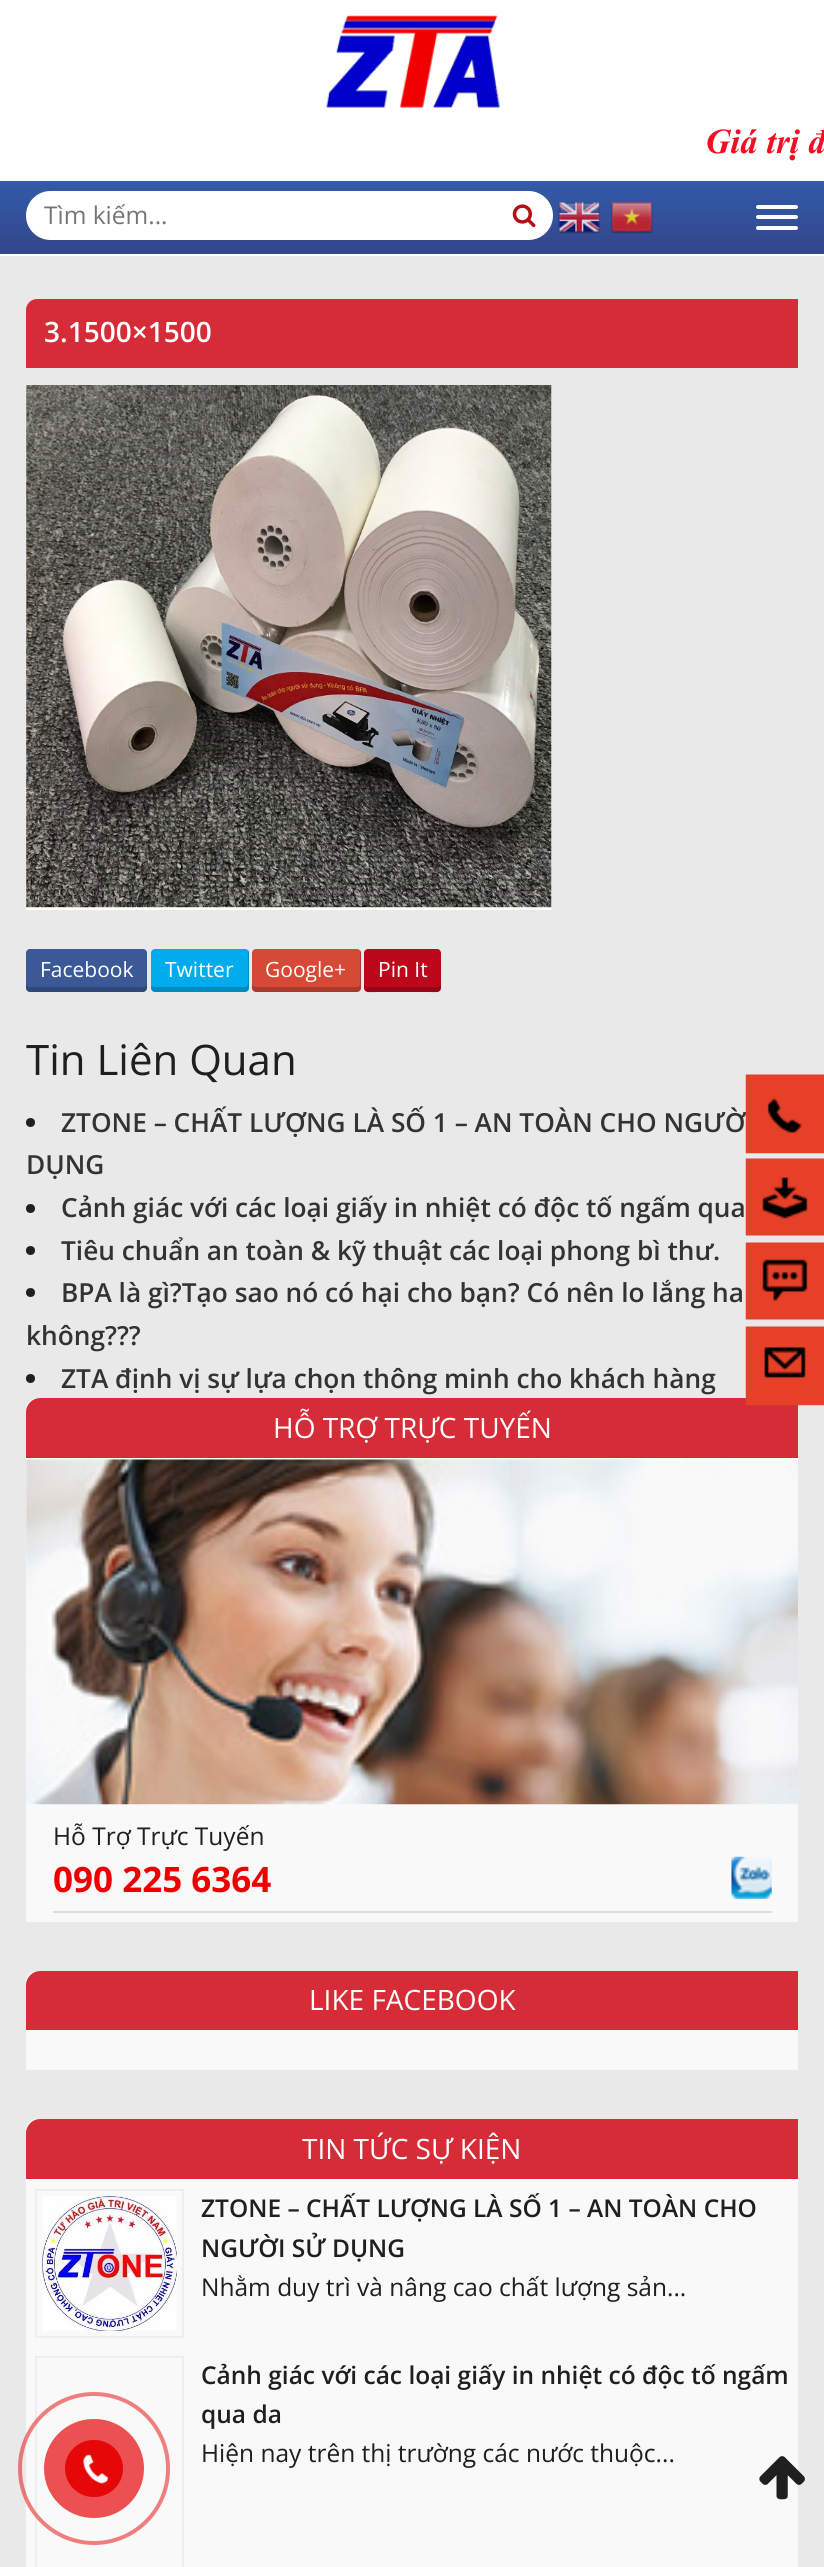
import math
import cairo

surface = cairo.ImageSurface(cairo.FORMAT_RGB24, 824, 2567)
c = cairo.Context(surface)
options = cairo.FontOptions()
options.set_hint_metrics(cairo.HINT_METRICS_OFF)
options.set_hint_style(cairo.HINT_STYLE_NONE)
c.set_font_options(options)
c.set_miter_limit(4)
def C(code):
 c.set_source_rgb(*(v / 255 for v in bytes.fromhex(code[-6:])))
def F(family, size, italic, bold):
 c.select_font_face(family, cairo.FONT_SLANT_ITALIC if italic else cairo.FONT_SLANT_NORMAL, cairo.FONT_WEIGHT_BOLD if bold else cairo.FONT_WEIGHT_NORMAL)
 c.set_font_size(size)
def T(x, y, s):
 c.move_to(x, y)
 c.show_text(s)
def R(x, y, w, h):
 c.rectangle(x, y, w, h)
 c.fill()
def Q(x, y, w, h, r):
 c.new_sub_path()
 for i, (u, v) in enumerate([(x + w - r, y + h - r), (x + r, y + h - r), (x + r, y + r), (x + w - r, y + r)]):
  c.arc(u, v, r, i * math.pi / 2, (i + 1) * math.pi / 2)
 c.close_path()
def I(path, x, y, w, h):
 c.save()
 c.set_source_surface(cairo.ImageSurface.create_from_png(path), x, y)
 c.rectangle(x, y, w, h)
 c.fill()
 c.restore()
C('e9e9e9')
c.paint()
C('ffffff')
R(0,0,824,181)
I('1.png',326,15,174,94)
F('Times New Roman',35,1,1)
C('f40d23')
T(705,153,'Giá trị đ')
gradient = cairo.LinearGradient(412,180,412,254)
gradient.add_color_stop_rgba(0,0.196,0.357,0.663,1)
gradient.add_color_stop_rgba(1,0.2,0.275,0.545,1)
c.set_source(gradient)
R(0,181,824,73)
C('ffffff')
R(0,254,824,2)
Q(26,191,527,49,24.5)
c.fill()
F('Open Sans',24.5,0,0)
C('757575')
T(44,224,'Tìm kiếm...')
I('2.png',512,204,24,24)
I('3.png',558,202,43,32)
I('4.png',610,202,43,32)
C('ffffff')
Q(756,205,42,4,2)
c.fill()
Q(756,215,42,4,2)
c.fill()
Q(756,226,42,4,2)
c.fill()
C('d62c38')
c.new_path()
c.move_to(37,299)
c.line_to(798,299)
c.line_to(798,368)
c.line_to(26,368)
c.line_to(26,310)
c.curve_to(26,304,31,299,37,299)
c.close_path()
c.fill()
F('Open Sans SemiBold',28,0,0)
C('ffffff')
T(44,342,'3.1500×1500')
I('5.png',26,385,526,525)
C('3b5997')
Q(26,949,121,43,4)
c.fill()
c.set_source_rgba(0,0,0,0.2)
c.new_path()
c.move_to(26,984)
c.line_to(26,988)
c.curve_to(26,990,28,992,30,992)
c.line_to(143,992)
c.curve_to(145,992,147,990,147,988)
c.line_to(147,984)
c.curve_to(147,985,145,987,144,987)
c.line_to(30,987)
c.curve_to(28,987,26,985,26,984)
c.close_path()
c.fill()
F('Open Sans',21,0,0)
C('ffffff')
T(40,977,'Facebook')
C('00aced')
Q(151,949,98,43,4)
c.fill()
c.set_source_rgba(0,0,0,0.2)
c.new_path()
c.move_to(151,986)
c.line_to(151,988)
c.curve_to(151,990,153,992,155,992)
c.line_to(245,992)
c.curve_to(247,992,249,990,249,988)
c.line_to(249,953)
c.curve_to(249,952,249,951,248,950)
c.line_to(248,984)
c.curve_to(248,985,247,987,245,987)
c.line_to(154,987)
c.curve_to(153,987,152,986,151,986)
c.close_path()
c.fill()
C('ffffff')
T(165,977,'Twitter')
C('d64937')
Q(252,949,109,43,4)
c.fill()
c.set_source_rgba(0,0,0,0.2)
c.new_path()
c.move_to(252,984)
c.line_to(252,988)
c.curve_to(252,990,254,992,256,992)
c.line_to(357,992)
c.curve_to(359,992,361,990,361,988)
c.line_to(361,953)
c.curve_to(361,952,361,951,360,950)
c.line_to(360,984)
c.curve_to(360,985,359,987,357,987)
c.line_to(256,987)
c.curve_to(254,987,252,985,252,984)
c.close_path()
c.fill()
C('ffffff')
T(265,977,'Google+')
C('bd081c')
Q(364,949,77,43,4)
c.fill()
c.set_source_rgba(0,0,0,0.2)
c.new_path()
c.move_to(364,984)
c.curve_to(364,995,368,992,380,992)
c.line_to(426,992)
c.curve_to(437,992,441,995,441,984)
c.line_to(440,986)
c.line_to(438,987)
c.line_to(367,987)
c.line_to(365,986)
c.close_path()
c.fill()
C('ffffff')
T(378,977,'Pin It')
F('Open Sans',42,0,0)
C('1f1f1f')
T(26,1075,'Tin Liên Quan')
c.new_path()
c.arc(30.5,1122.5,4.5,0,2 * math.pi)
c.fill()
F('Open Sans SemiBold',26.25,0,0)
C('333333')
T(61,1132,'ZTONE – CHẤT LƯỢNG LÀ SỐ 1 – AN TOÀN CHO NGƯỜ')
T(26,1174,'DỤNG')
C('1f1f1f')
c.new_path()
c.arc(30.5,1208.5,4.5,0,2 * math.pi)
c.fill()
C('333333')
T(61,1217,'Cảnh giác với các loại giấy in nhiệt có độc tố ngấm qua')
C('1f1f1f')
c.new_path()
c.arc(30.5,1250.5,4.5,0,2 * math.pi)
c.fill()
C('333333')
T(61,1260,'Tiêu chuẩn an toàn & kỹ thuật các loại phong bì thư.')
C('1f1f1f')
c.new_path()
c.arc(30.5,1292.5,4.5,0,2 * math.pi)
c.fill()
C('333333')
T(61,1302,'BPA là gì?Tạo sao nó có hại cho bạn? Có nên lo lắng ha')
T(26,1345,'không???')
C('1f1f1f')
c.new_path()
c.arc(30.5,1378.5,4.5,0,2 * math.pi)
c.fill()
C('333333')
T(61,1388,'ZTA định vị sự lựa chọn thông minh cho khách hàng')
C('f9f9f9')
c.new_path()
c.move_to(37,1398)
c.line_to(798,1398)
c.line_to(798,1922)
c.line_to(26,1922)
c.line_to(26,1409)
c.curve_to(26,1403,31,1398,37,1398)
c.close_path()
c.fill()
C('d62c38')
c.new_path()
c.move_to(40,1398)
c.line_to(798,1398)
c.line_to(798,1460)
c.line_to(26,1460)
c.line_to(26,1412)
c.curve_to(26,1404.5,32.5,1398,40,1398)
c.close_path()
c.fill()
C('ffffff')
R(26,1458,772,2)
F('Open Sans',28,0,0)
T(273,1438,'HỖ TRỢ TRỰC TUYẾN')
I('6.png',26,1459,772,346)
C('dedede')
R(53,1911,719,2)
F('Open Sans',24.5,0,0)
C('1f1f1f')
T(53,1845,'Hỗ Trợ Trực Tuyến')
F('Open Sans',35,0,1)
C('ef0000')
T(53,1892,'090 225 6364')
I('7.png',731,1856,41,43)
C('f9f9f9')
c.new_path()
c.move_to(37,1971)
c.line_to(798,1971)
c.line_to(798,2070)
c.line_to(26,2070)
c.line_to(26,1982)
c.curve_to(26,1976,31,1971,37,1971)
c.close_path()
c.fill()
C('d62c38')
c.new_path()
c.move_to(40,1971)
c.line_to(798,1971)
c.line_to(798,2032)
c.line_to(26,2032)
c.line_to(26,1985)
c.curve_to(26,1977.5,32.5,1971,40,1971)
c.close_path()
c.fill()
C('ffffff')
R(26,2030,772,2)
F('Open Sans',28,0,0)
T(309,2010,'LIKE FACEBOOK')
C('f9f9f9')
c.new_path()
c.move_to(37,2119)
c.line_to(798,2119)
c.line_to(798,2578)
c.line_to(26,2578)
c.line_to(26,2130)
c.curve_to(26,2124,31,2119,37,2119)
c.close_path()
c.fill()
C('d62c38')
c.new_path()
c.move_to(40,2119)
c.line_to(798,2119)
c.line_to(798,2181)
c.line_to(26,2181)
c.line_to(26,2133)
c.curve_to(26,2125.5,32.5,2119,40,2119)
c.close_path()
c.fill()
C('ffffff')
R(26,2179,772,2)
T(302,2159,'TIN TỨC SỰ KIỆN')
c.rectangle(36,2190,147,147)
C('eeeeee')
c.stroke()
I('8.png',42,2196,135,135)
F('Open Sans SemiBold',24.5,0,0)
C('1f1f1f')
T(201,2217,'ZTONE – CHẤT LƯỢNG LÀ SỐ 1 – AN TOÀN CHO')
T(201,2257,'NGƯỜI SỬ DỤNG')
F('Open Sans',24.5,0,0)
T(201,2296,'Nhằm duy trì và nâng cao chất lượng sản...')
c.rectangle(36,2357,147,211)
C('eeeeee')
c.stroke()
F('Open Sans SemiBold',24.5,0,0)
C('1f1f1f')
T(201,2384,'Cảnh giác với các loại giấy in nhiệt có độc tố ngấm')
T(201,2423,'qua da')
F('Open Sans',24.5,0,0)
T(201,2462,'Hiện nay trên thị trường các nước thuộc...')
I('9.png',745,1074,79,80)
I('10.png',745,1158,79,79)
I('11.png',745,1242,79,79)
I('12.png',745,1326,79,80)
I('13.png',759,2456,46,44)
Q(20,2394,148,149,74)
c.set_source_rgba(0.902,0.031,0.031,0.5)
c.set_line_width(4)
c.stroke()
C('ec5050')
Q(44,2419,100,99,49.5)
c.fill()
C('e60808')
Q(65,2440,58,57,28.5)
c.fill()
I('14.png',83,2454,25,30)
surface.write_to_png('o.png')
